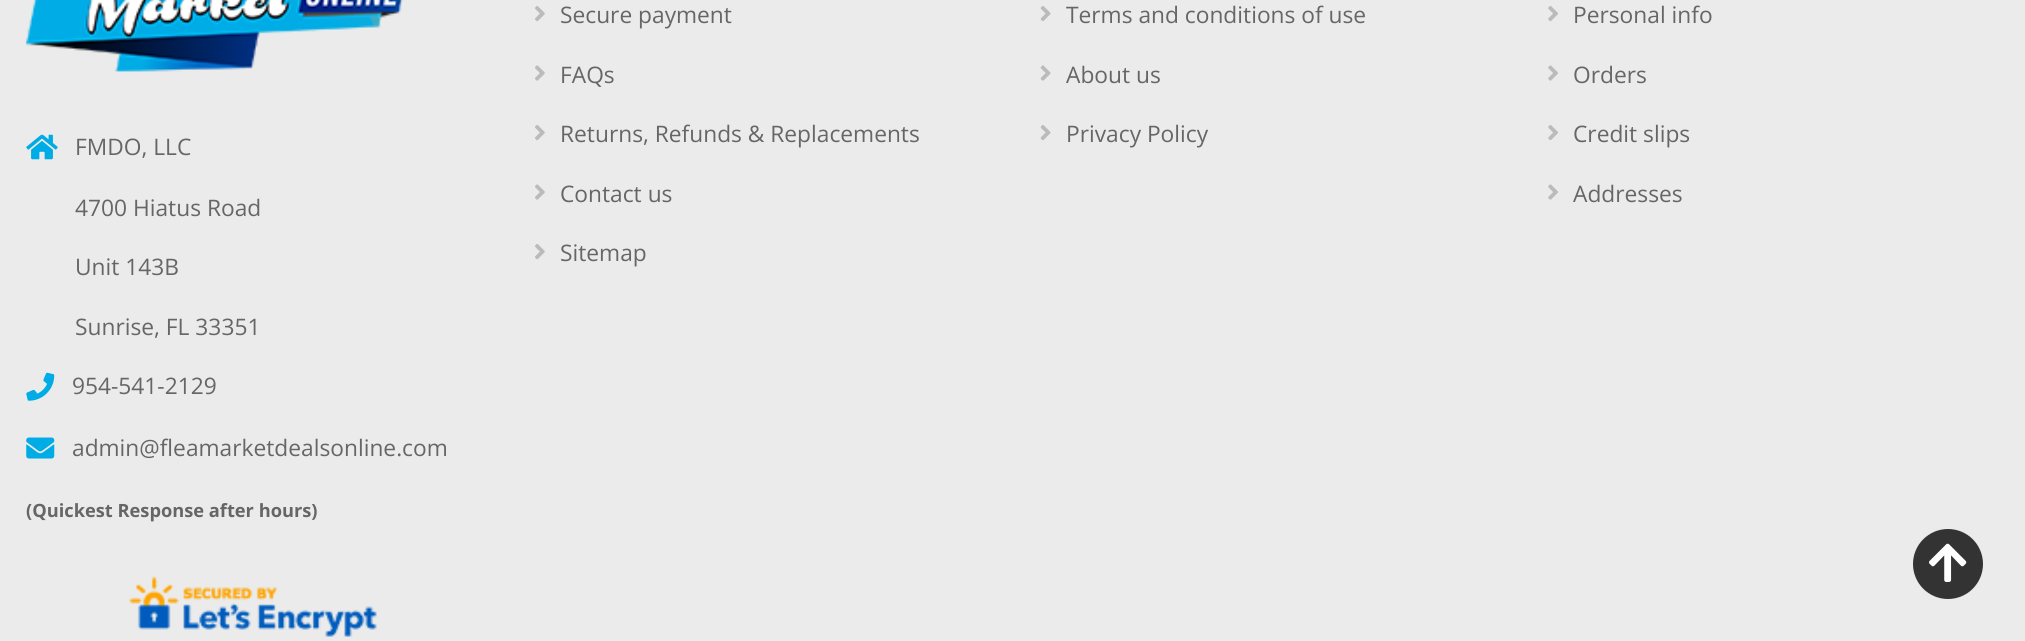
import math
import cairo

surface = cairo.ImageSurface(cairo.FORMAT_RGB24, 2025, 641)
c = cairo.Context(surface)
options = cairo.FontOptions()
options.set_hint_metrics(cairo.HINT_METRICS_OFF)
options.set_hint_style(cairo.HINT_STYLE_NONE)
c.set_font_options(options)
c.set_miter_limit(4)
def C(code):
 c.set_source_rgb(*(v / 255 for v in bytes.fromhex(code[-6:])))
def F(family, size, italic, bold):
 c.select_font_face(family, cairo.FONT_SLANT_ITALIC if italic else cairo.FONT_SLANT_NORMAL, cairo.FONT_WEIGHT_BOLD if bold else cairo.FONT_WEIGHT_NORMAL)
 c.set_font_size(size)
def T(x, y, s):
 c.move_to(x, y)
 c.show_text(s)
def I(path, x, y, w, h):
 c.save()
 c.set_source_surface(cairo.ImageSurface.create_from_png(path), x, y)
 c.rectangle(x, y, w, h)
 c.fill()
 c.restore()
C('ebebeb')
c.paint()
I('1.png',26,0,377,72)
I('2.png',26,134,32,26)
F('Open Sans',22.75,0,0)
C('666666')
T(75,155,'FMDO, LLC')
T(75,216,'4700 Hiatus Road')
T(75,275,'Unit 143B')
T(75,335,'Sunrise, FL 33351')
I('3.png',26,372,29,29)
T(72,394,'954-541-2129')
I('4.png',26,437,29,22)
T(72,456,'admin@fleamarketdealsonline.com')
F('Open Sans',18.25,0,1)
T(26,517,'(Quickest Response after hours)')
I('5.png',129,576,248,61)
I('6.png',535,6,10,16)
F('Open Sans',22.75,0,0)
T(560,23,'Secure payment')
I('7.png',535,65,10,16)
T(560,83,'FAQs')
I('6.png',535,125,10,16)
T(560,142,'Returns, Refunds & Replacements')
I('7.png',535,184,10,16)
T(560,202,'Contact us')
I('6.png',535,244,10,16)
T(560,261,'Sitemap')
I('8.png',1040,6,11,16)
T(1066,23,'Terms and conditions of use')
I('9.png',1040,65,11,16)
T(1066,83,'About us')
I('8.png',1040,125,11,16)
T(1066,142,'Privacy Policy')
I('10.png',1548,6,10,16)
T(1573,23,'Personal info')
I('11.png',1548,65,10,16)
T(1573,83,'Orders')
I('10.png',1548,125,10,16)
T(1573,142,'Credit slips')
I('11.png',1548,184,10,16)
T(1573,202,'Addresses')
C('333333')
c.new_path()
c.arc(1948,564,35,0,2 * math.pi)
c.fill()
I('12.png',1929,543,38,39)
surface.write_to_png('o.png')
